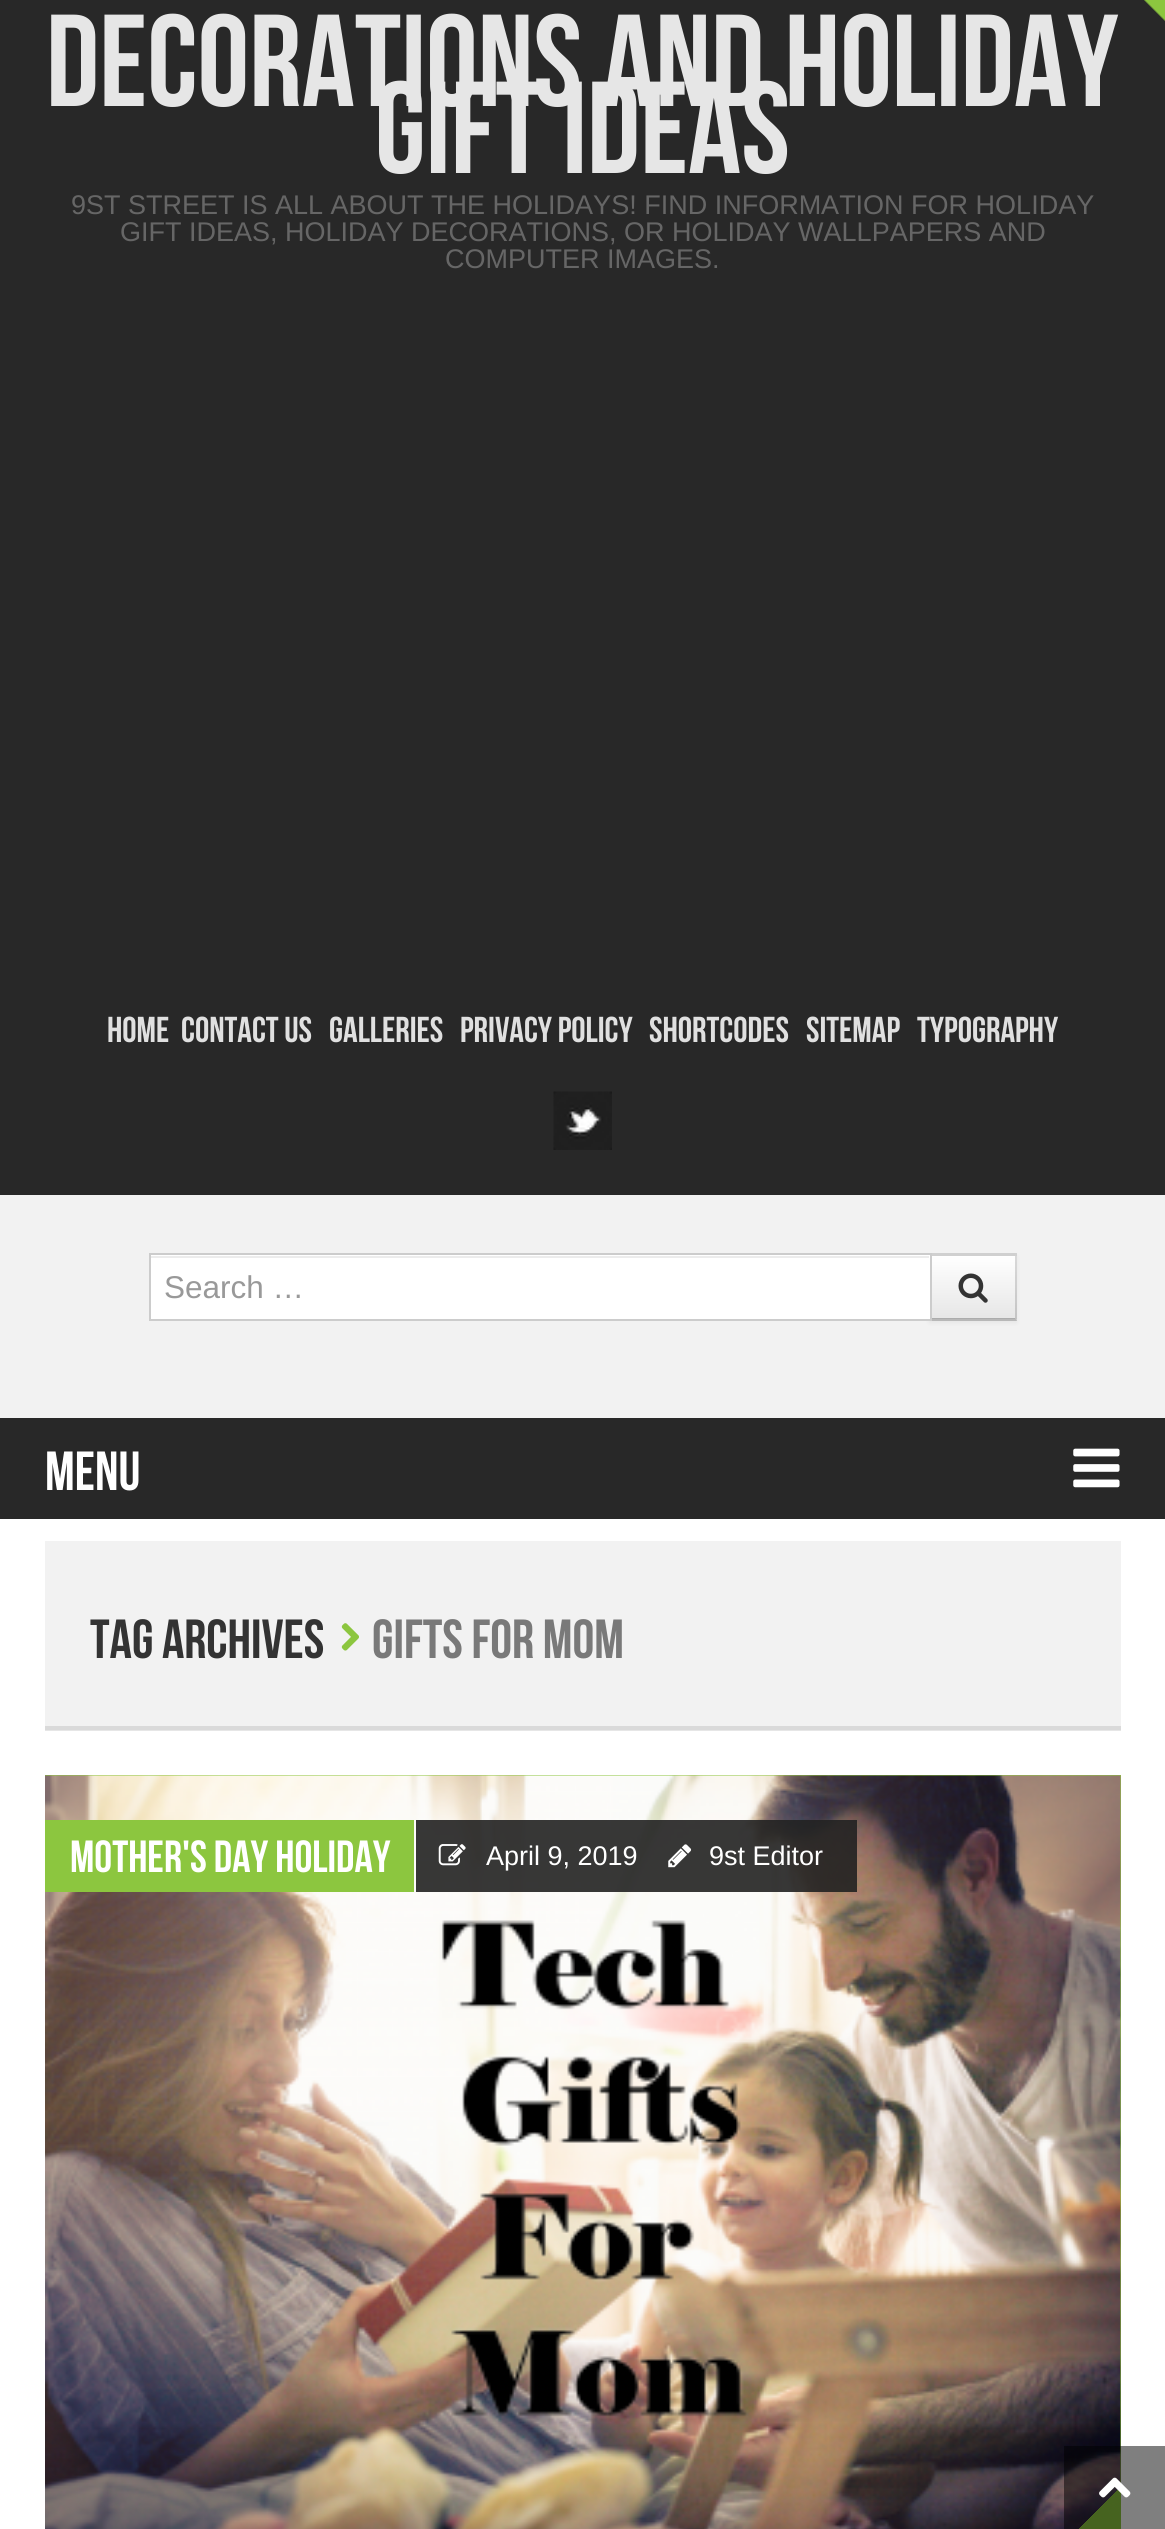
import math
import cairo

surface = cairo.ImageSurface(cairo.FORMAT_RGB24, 1165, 2529)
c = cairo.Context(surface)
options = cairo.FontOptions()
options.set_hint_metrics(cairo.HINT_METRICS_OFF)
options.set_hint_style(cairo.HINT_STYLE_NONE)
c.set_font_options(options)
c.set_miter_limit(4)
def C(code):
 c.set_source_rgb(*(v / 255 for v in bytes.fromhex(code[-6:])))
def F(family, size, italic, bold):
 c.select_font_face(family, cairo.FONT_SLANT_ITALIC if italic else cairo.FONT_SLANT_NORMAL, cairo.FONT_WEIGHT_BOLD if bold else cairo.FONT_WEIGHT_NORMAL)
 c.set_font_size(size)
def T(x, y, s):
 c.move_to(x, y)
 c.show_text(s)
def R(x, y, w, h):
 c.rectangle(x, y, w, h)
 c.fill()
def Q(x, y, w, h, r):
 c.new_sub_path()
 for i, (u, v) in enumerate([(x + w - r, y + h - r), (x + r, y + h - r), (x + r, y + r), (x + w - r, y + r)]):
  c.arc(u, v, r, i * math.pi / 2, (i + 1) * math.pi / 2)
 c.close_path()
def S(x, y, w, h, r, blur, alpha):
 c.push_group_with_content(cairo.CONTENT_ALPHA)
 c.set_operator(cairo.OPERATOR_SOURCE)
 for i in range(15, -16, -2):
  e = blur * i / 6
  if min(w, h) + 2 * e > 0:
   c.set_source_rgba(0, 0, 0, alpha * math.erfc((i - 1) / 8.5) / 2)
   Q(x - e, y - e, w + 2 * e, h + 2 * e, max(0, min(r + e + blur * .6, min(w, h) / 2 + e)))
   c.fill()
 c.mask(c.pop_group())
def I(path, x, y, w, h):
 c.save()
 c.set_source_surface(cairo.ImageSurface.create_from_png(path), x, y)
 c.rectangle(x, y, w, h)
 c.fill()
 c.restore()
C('ffffff')
c.paint()
C('e6e6e6')
R(45,1730,1076,1)
C('282828')
R(0,0,1165,1195)
gradient = cairo.LinearGradient(1042,23,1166,-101)
gradient.add_color_stop_rgba(0,0,0,0,0)
gradient.add_color_stop_rgba(.5,0.549,0.776,0.247,0)
gradient.add_color_stop_rgba(.51,0.549,0.776,0.247,1)
gradient.add_color_stop_rgba(1,0.549,0.776,0.247,1)
c.set_source(gradient)
R(1144,0,21,21)
F('Bebas Neue',130.5,0,0)
C('e6e6e6')
T(46,106,'Decorations and Holiday')
T(375,173,'Gift Ideas')
F('Liberation Sans',27,0,0)
C('666666')
T(71,214,'9ST STREET IS ALL ABOUT THE HOLIDAYS! FIND INFORMATION FOR HOLIDAY')
T(120,241,'GIFT IDEAS, HOLIDAY DECORATIONS, OR HOLIDAY WALLPAPERS AND')
T(445,268,'COMPUTER IMAGES.')
F('Bebas Neue',36,0,0)
C('e0e0e0')
T(107,1042,'HOME')
T(181,1042,'CONTACT US')
T(329,1042,'GALLERIES')
T(460,1042,'PRIVACY POLICY')
T(649,1042,'SHORTCODES')
T(806,1042,'SITEMAP')
T(917,1042,'TYPOGRAPHY')
I('1.png',553,1091,59,59)
C('f2f2f2')
R(0,1195,1165,223)
C('000000')
S(929,1256,88,67,0,2,.05)
C('f5f5f5')
R(932,1253,85,68)
C('d0d0d0')
c.new_path()
c.move_to(929,1253)
c.line_to(1017,1253)
c.line_to(1015,1256)
c.line_to(932,1256)
c.close_path()
c.fill()
gradient = cairo.LinearGradient(973,1256,973,1319)
gradient.add_color_stop_rgba(0,1,1,1,1)
gradient.add_color_stop_rgba(1,0.902,0.902,0.902,1)
c.set_source(gradient)
R(932,1256,85,63)
c.set_source_rgba(0,0,0,0.15)
c.new_path()
c.move_to(1017,1253)
c.line_to(1017,1321)
c.line_to(1015,1318)
c.line_to(1015,1256)
c.close_path()
c.fill()
c.set_source_rgba(0,0,0,0.25)
c.new_path()
c.move_to(1017,1321)
c.line_to(929,1321)
c.line_to(932,1318)
c.line_to(1015,1318)
c.close_path()
c.fill()
C('ffffff')
R(151,1255,779,64)
C('ececec')
R(151,1256,778,2)
c.rectangle(150,1254,781,66)
C('cccccc')
c.stroke()
F('Liberation Sans',31.5,0,0)
C('999999')
T(164,1298,'Search …')
I('2.png',958,1273,30,30)
C('282828')
R(0,1418,1165,101)
F('Bebas Neue',55,0,0)
C('ffffff')
T(45,1490,'Menu')
I('3.png',1073,1448,47,40)
C('f2f2f2')
R(45,1541,1076,185)
C('dadada')
R(45,1726,1076,4)
C('333333')
T(90,1658,'Tag Archives')
I('4.png',341,1623,18,28)
C('797979')
T(372,1658,'gifts for mom')
C('8cc63f')
R(45,1775,1076,708)
I('5.png',45,1775,1076,754)
R(45,1820,369,72)
F('Bebas Neue',45,0,0)
C('ffffff')
T(70,1872,'Mother\'s Day Holiday')
c.set_source_rgba(0.133,0.133,0.133,0.9)
R(416,1820,441,72)
I('6.png',438,1844,28,22)
F('Liberation Sans',27,0,0)
C('ffffff')
T(486,1865,'April 9, 2019')
I('7.png',668,1844,24,24)
T(709,1865,'9st Editor')
gradient = cairo.LinearGradient(1076,2486,1121,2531)
gradient.add_color_stop_rgba(0,0,0,0,0)
gradient.add_color_stop_rgba(.5,0.549,0.776,0.247,0)
gradient.add_color_stop_rgba(.51,0.549,0.776,0.247,1)
gradient.add_color_stop_rgba(1,0.549,0.776,0.247,1)
c.set_source(gradient)
R(1079,2490,42,39)
c.set_source_rgba(0,0,0,0.5)
R(1064,2446,101,83)
I('8.png',1099,2477,32,21)
surface.write_to_png('o.png')
